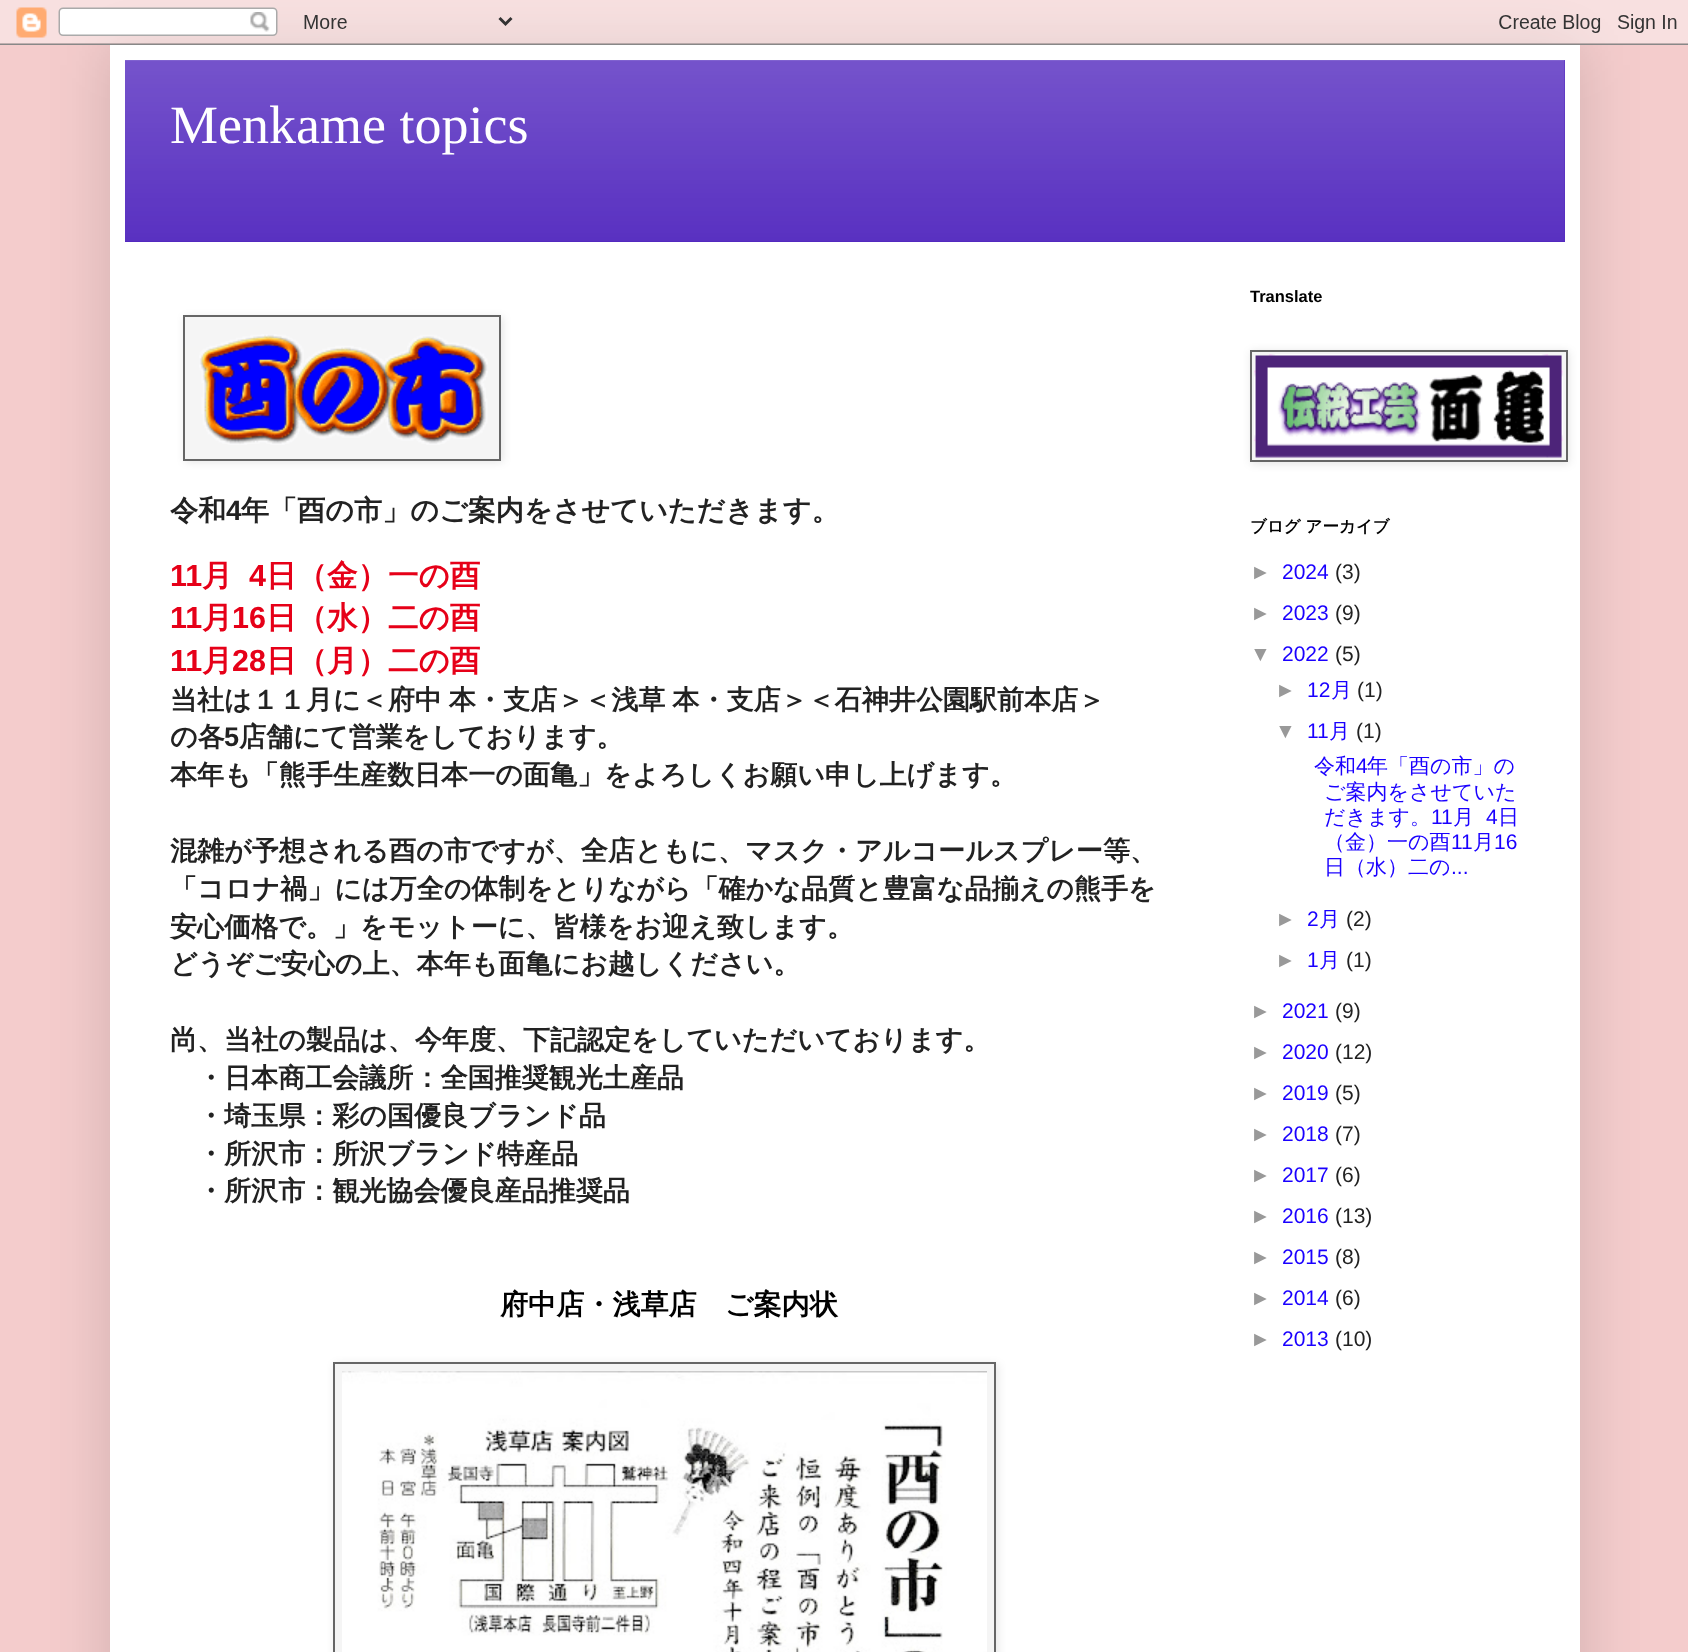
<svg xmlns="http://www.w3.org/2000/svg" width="1688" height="1652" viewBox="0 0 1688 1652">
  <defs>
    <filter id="blur1" x="-50%" y="-200%" width="200%" height="500%"><feGaussianBlur stdDeviation="30"/></filter>
    <filter id="blur2" x="-50%" y="-200%" width="200%" height="500%"><feGaussianBlur stdDeviation="4"/></filter>
  </defs>
  <rect width="100%" height="100%" fill="#f4cccc"/>
  <rect x="110" y="45" width="1470" height="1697" fill="#000000" fill-opacity="0.15" filter="url(#blur1)"/>
  <image x="0" y="0" width="1688" height="45" href="img1.png"/>
  <rect x="110" y="45" width="1470" height="1607" fill="#ffffff"/>
  <rect x="125" y="60" width="1440" height="182" fill="#5329bf"/>
  <image x="125" y="60" width="1440" height="181" href="img2.png"/>
  <text x="170" y="143" font-family="Liberation Serif" font-size="54" fill="#ffffff">Menkame topics</text>
  <rect x="185" y="317" width="318" height="145" fill="#000000" fill-opacity="0.1" filter="url(#blur2)"/>
  <rect x="184" y="316" width="316" height="144" fill="#f5f5f5" stroke="#666666" stroke-width="2"/>
  <image x="199" y="334" width="289" height="111" href="img3.png"/>
  <text x="170" y="520" font-family="WenQuanYi Zen Hei" font-size="28.1" font-weight="bold" fill="#222222">令和</text>
  <text x="226" y="520" font-family="Liberation Sans" font-size="28.1" font-weight="bold" fill="#222222">4</text>
  <text x="241" y="520" font-family="WenQuanYi Zen Hei" font-size="28.1" font-weight="bold" fill="#222222">年「酉の市」のご案内をさせていただきます。</text>
  <text x="170" y="586" font-family="Liberation Sans" font-size="30.5" font-weight="bold" fill="#e60018">11</text>
  <text x="202" y="586" font-family="WenQuanYi Zen Hei" font-size="30.5" font-weight="bold" fill="#e60018">月</text>
  <text x="249" y="586" font-family="Liberation Sans" font-size="30.5" font-weight="bold" fill="#e60018">4</text>
  <text x="266" y="586" font-family="WenQuanYi Zen Hei" font-size="30.5" font-weight="bold" fill="#e60018">日（金）一の酉</text>
  <text x="170" y="628" font-family="Liberation Sans" font-size="30.5" font-weight="bold" fill="#e60018">11</text>
  <text x="202" y="628" font-family="WenQuanYi Zen Hei" font-size="30.5" font-weight="bold" fill="#e60018">月</text>
  <text x="232" y="628" font-family="Liberation Sans" font-size="30.5" font-weight="bold" fill="#e60018">16</text>
  <text x="266" y="628" font-family="WenQuanYi Zen Hei" font-size="30.5" font-weight="bold" fill="#e60018">日（水）二の酉</text>
  <text x="170" y="671" font-family="Liberation Sans" font-size="30.5" font-weight="bold" fill="#e60018">11</text>
  <text x="202" y="671" font-family="WenQuanYi Zen Hei" font-size="30.5" font-weight="bold" fill="#e60018">月</text>
  <text x="232" y="671" font-family="Liberation Sans" font-size="30.5" font-weight="bold" fill="#e60018">28</text>
  <text x="266" y="671" font-family="WenQuanYi Zen Hei" font-size="30.5" font-weight="bold" fill="#e60018">日（月）二の酉</text>
  <text x="170" y="709" word-spacing="-1" font-family="WenQuanYi Zen Hei" font-size="27.05" font-weight="bold" fill="#222222">当社は１１月に＜府中 本・支店＞＜浅草 本・支店＞＜石神井公園駅前本店＞</text>
  <text x="170" y="746" font-family="WenQuanYi Zen Hei" font-size="27.05" font-weight="bold" fill="#222222">の各</text>
  <text x="224" y="746" font-family="Liberation Sans" font-size="27.05" font-weight="bold" fill="#222222">5</text>
  <text x="239" y="746" font-family="WenQuanYi Zen Hei" font-size="27.05" font-weight="bold" fill="#222222">店舗にて営業をしております。</text>
  <text x="170" y="784" font-family="WenQuanYi Zen Hei" font-size="27.05" font-weight="bold" fill="#222222">本年も「熊手生産数日本一の面亀」をよろしくお願い申し上げます。</text>
  <text x="170" y="860" font-family="WenQuanYi Zen Hei" font-size="27.05" font-weight="bold" fill="#222222">混雑が予想される酉の市ですが、全店ともに、マスク・アルコールスプレー等、</text>
  <text x="170" y="898" font-family="WenQuanYi Zen Hei" font-size="27.05" font-weight="bold" fill="#222222">「コロナ禍」には万全の体制をとりながら「確かな品質と豊富な品揃えの熊手を</text>
  <text x="170" y="936" font-family="WenQuanYi Zen Hei" font-size="27.05" font-weight="bold" fill="#222222">安心価格で。」をモットーに、皆様をお迎え致します。</text>
  <text x="170" y="973" font-family="WenQuanYi Zen Hei" font-size="27.05" font-weight="bold" fill="#222222">どうぞご安心の上、本年も面亀にお越しください。</text>
  <text x="170" y="1049" font-family="WenQuanYi Zen Hei" font-size="27.05" font-weight="bold" fill="#222222">尚、当社の製品は、今年度、下記認定をしていただいております。</text>
  <text x="197" y="1087" font-family="WenQuanYi Zen Hei" font-size="27.05" font-weight="bold" fill="#222222">・日本商工会議所：全国推奨観光土産品</text>
  <text x="197" y="1125" font-family="WenQuanYi Zen Hei" font-size="27.05" font-weight="bold" fill="#222222">・埼玉県：彩の国優良ブランド品</text>
  <text x="197" y="1163" font-family="WenQuanYi Zen Hei" font-size="27.05" font-weight="bold" fill="#222222">・所沢市：所沢ブランド特産品</text>
  <text x="197" y="1200" font-family="WenQuanYi Zen Hei" font-size="27.05" font-weight="bold" fill="#222222">・所沢市：観光協会優良産品推奨品</text>
  <text x="500" y="1314" font-family="WenQuanYi Zen Hei" font-size="28.1" font-weight="bold" fill="#000000">府中店・浅草店　ご案内状</text>
  <rect x="335" y="1364" width="663" height="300" fill="#000000" fill-opacity="0.1" filter="url(#blur2)"/>
  <rect x="334" y="1363" width="661" height="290" fill="#f5f5f5" stroke="#666666" stroke-width="2"/>
  <image x="342" y="1371" width="645" height="281" href="img4.png"/>
  <text x="1250" y="302" font-family="Liberation Sans" font-size="16.5" font-weight="bold" fill="#000000">Translate</text>
  <rect x="1251" y="351" width="318" height="113" fill="#000000" fill-opacity="0.1" filter="url(#blur2)"/>
  <rect x="1251" y="351" width="316" height="110" fill="#f5f5f5" stroke="#666666" stroke-width="2"/>
  <image x="1254" y="354" width="309" height="104" href="img5.png"/>
  <text x="1250" y="532" font-family="WenQuanYi Zen Hei" font-size="16.5" font-weight="bold" fill="#000000">ブログ アーカイブ</text>
  <text x="1250" y="579" font-family="Liberation Sans" font-size="21" fill="#999999">►</text>
  <text x="1282" y="579" font-family="Liberation Sans" font-size="21" fill="#1a00ff">2024</text>
  <text x="1335" y="579" font-family="Liberation Sans" font-size="21" fill="#222222">(3)</text>
  <text x="1250" y="620" font-family="Liberation Sans" font-size="21" fill="#999999">►</text>
  <text x="1282" y="620" font-family="Liberation Sans" font-size="21" fill="#1a00ff">2023</text>
  <text x="1335" y="620" font-family="Liberation Sans" font-size="21" fill="#222222">(9)</text>
  <text x="1250" y="661" font-family="Liberation Sans" font-size="21" fill="#999999">▼</text>
  <text x="1282" y="661" font-family="Liberation Sans" font-size="21" fill="#1a00ff">2022</text>
  <text x="1335" y="661" font-family="Liberation Sans" font-size="21" fill="#222222">(5)</text>
  <text x="1275" y="697" font-family="Liberation Sans" font-size="21" fill="#999999">►</text>
  <text x="1307" y="697" font-family="Liberation Sans" font-size="21" fill="#1a00ff">12</text>
  <text x="1331" y="697" font-family="WenQuanYi Zen Hei" font-size="21" font-weight="500" fill="#1a00ff">月</text>
  <text x="1357" y="697" font-family="Liberation Sans" font-size="21" fill="#222222">(1)</text>
  <text x="1275" y="738" font-family="Liberation Sans" font-size="21" fill="#999999">▼</text>
  <text x="1307" y="738" font-family="Liberation Sans" font-size="21" fill="#1a00ff">11</text>
  <text x="1329" y="738" font-family="WenQuanYi Zen Hei" font-size="21" font-weight="500" fill="#1a00ff">月</text>
  <text x="1356" y="738" font-family="Liberation Sans" font-size="21" fill="#222222">(1)</text>
  <text x="1314" y="773" font-family="WenQuanYi Zen Hei" font-size="21" font-weight="500" fill="#1a00ff">令和</text>
  <text x="1356" y="773" font-family="Liberation Sans" font-size="21" fill="#1a00ff">4</text>
  <text x="1367" y="773" font-family="WenQuanYi Zen Hei" font-size="21" font-weight="500" fill="#1a00ff">年「酉の市」の</text>
  <text x="1324" y="799" font-family="WenQuanYi Zen Hei" font-size="21" font-weight="500" fill="#1a00ff">ご案内をさせていた</text>
  <text x="1324" y="824" font-family="WenQuanYi Zen Hei" font-size="21" font-weight="500" fill="#1a00ff">だきます。</text>
  <text x="1431" y="824" font-family="Liberation Sans" font-size="21" fill="#1a00ff">11</text>
  <text x="1453" y="824" font-family="WenQuanYi Zen Hei" font-size="21" font-weight="500" fill="#1a00ff">月</text>
  <text x="1486" y="824" font-family="Liberation Sans" font-size="21" fill="#1a00ff">4</text>
  <text x="1498" y="824" font-family="WenQuanYi Zen Hei" font-size="21" font-weight="500" fill="#1a00ff">日</text>
  <text x="1324" y="849" font-family="WenQuanYi Zen Hei" font-size="21" font-weight="500" fill="#1a00ff">（金）一の酉</text>
  <text x="1451" y="849" font-family="Liberation Sans" font-size="21" fill="#1a00ff">11</text>
  <text x="1473" y="849" font-family="WenQuanYi Zen Hei" font-size="21" font-weight="500" fill="#1a00ff">月</text>
  <text x="1494" y="849" font-family="Liberation Sans" font-size="21" fill="#1a00ff">16</text>
  <text x="1324" y="874" font-family="WenQuanYi Zen Hei" font-size="21" font-weight="500" fill="#1a00ff">日（水）二の</text>
  <text x="1451" y="874" font-family="Liberation Sans" font-size="21" fill="#1a00ff">...</text>
  <text x="1275" y="926" font-family="Liberation Sans" font-size="21" fill="#999999">►</text>
  <text x="1307" y="926" font-family="Liberation Sans" font-size="21" fill="#1a00ff">2</text>
  <text x="1319" y="926" font-family="WenQuanYi Zen Hei" font-size="21" font-weight="500" fill="#1a00ff">月</text>
  <text x="1346" y="926" font-family="Liberation Sans" font-size="21" fill="#222222">(2)</text>
  <text x="1275" y="967" font-family="Liberation Sans" font-size="21" fill="#999999">►</text>
  <text x="1307" y="967" font-family="Liberation Sans" font-size="21" fill="#1a00ff">1</text>
  <text x="1319" y="967" font-family="WenQuanYi Zen Hei" font-size="21" font-weight="500" fill="#1a00ff">月</text>
  <text x="1346" y="967" font-family="Liberation Sans" font-size="21" fill="#222222">(1)</text>
  <text x="1250" y="1018" font-family="Liberation Sans" font-size="21" fill="#999999">►</text>
  <text x="1282" y="1018" font-family="Liberation Sans" font-size="21" fill="#1a00ff">2021</text>
  <text x="1335" y="1018" font-family="Liberation Sans" font-size="21" fill="#222222">(9)</text>
  <text x="1250" y="1059" font-family="Liberation Sans" font-size="21" fill="#999999">►</text>
  <text x="1282" y="1059" font-family="Liberation Sans" font-size="21" fill="#1a00ff">2020</text>
  <text x="1335" y="1059" font-family="Liberation Sans" font-size="21" fill="#222222">(12)</text>
  <text x="1250" y="1100" font-family="Liberation Sans" font-size="21" fill="#999999">►</text>
  <text x="1282" y="1100" font-family="Liberation Sans" font-size="21" fill="#1a00ff">2019</text>
  <text x="1335" y="1100" font-family="Liberation Sans" font-size="21" fill="#222222">(5)</text>
  <text x="1250" y="1141" font-family="Liberation Sans" font-size="21" fill="#999999">►</text>
  <text x="1282" y="1141" font-family="Liberation Sans" font-size="21" fill="#1a00ff">2018</text>
  <text x="1335" y="1141" font-family="Liberation Sans" font-size="21" fill="#222222">(7)</text>
  <text x="1250" y="1182" font-family="Liberation Sans" font-size="21" fill="#999999">►</text>
  <text x="1282" y="1182" font-family="Liberation Sans" font-size="21" fill="#1a00ff">2017</text>
  <text x="1335" y="1182" font-family="Liberation Sans" font-size="21" fill="#222222">(6)</text>
  <text x="1250" y="1223" font-family="Liberation Sans" font-size="21" fill="#999999">►</text>
  <text x="1282" y="1223" font-family="Liberation Sans" font-size="21" fill="#1a00ff">2016</text>
  <text x="1335" y="1223" font-family="Liberation Sans" font-size="21" fill="#222222">(13)</text>
  <text x="1250" y="1264" font-family="Liberation Sans" font-size="21" fill="#999999">►</text>
  <text x="1282" y="1264" font-family="Liberation Sans" font-size="21" fill="#1a00ff">2015</text>
  <text x="1335" y="1264" font-family="Liberation Sans" font-size="21" fill="#222222">(8)</text>
  <text x="1250" y="1305" font-family="Liberation Sans" font-size="21" fill="#999999">►</text>
  <text x="1282" y="1305" font-family="Liberation Sans" font-size="21" fill="#1a00ff">2014</text>
  <text x="1335" y="1305" font-family="Liberation Sans" font-size="21" fill="#222222">(6)</text>
  <text x="1250" y="1346" font-family="Liberation Sans" font-size="21" fill="#999999">►</text>
  <text x="1282" y="1346" font-family="Liberation Sans" font-size="21" fill="#1a00ff">2013</text>
  <text x="1335" y="1346" font-family="Liberation Sans" font-size="21" fill="#222222">(10)</text>
</svg>
